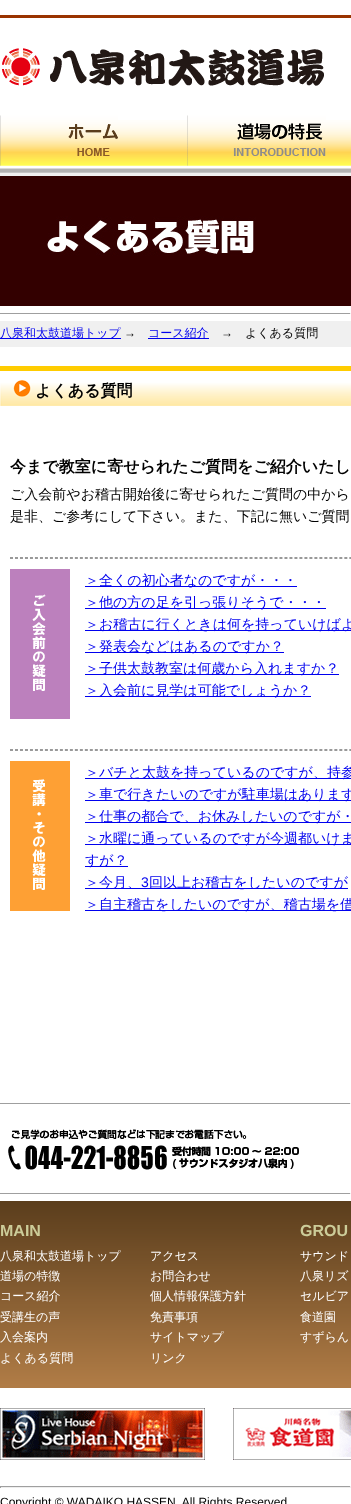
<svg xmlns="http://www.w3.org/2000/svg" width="351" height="1504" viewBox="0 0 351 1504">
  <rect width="100%" height="100%" fill="#ffffff"/>
  <rect x="0" y="15" width="351" height="3" fill="#993300"/>
  <image x="2" y="48" width="322" height="38" href="img1.png"/>
  <image x="0" y="120" width="351" height="53" href="img2.png"/>
  <image x="0" y="115" width="118" height="51" href="img3.png"/>
  <image x="187" y="115" width="139" height="51" href="img4.png"/>
  <image x="0" y="173" width="351" height="3" href="img5.png"/>
  <image x="0" y="176" width="351" height="130" href="img6.png"/>
  <rect x="0" y="313" width="351" height="1" fill="#9f9f9f"/>
  <rect x="350" y="313" width="1" height="1" fill="#eeeeee"/>
  <rect x="0" y="321" width="351" height="26" fill="#f0f0f0"/>
  <rect x="0" y="338" width="121" height="1" fill="#0000ee"/>
  <text x="0" y="337" font-family="WenQuanYi Zen Hei" font-size="12" font-weight="500" fill="#0000ee">八泉和太鼓道場トップ</text>
  <text x="124" y="337" font-family="Liberation Sans" font-size="12" fill="#000000">→</text>
  <rect x="148" y="338" width="61" height="1" fill="#0000ee"/>
  <text x="148" y="337" font-family="WenQuanYi Zen Hei" font-size="12" font-weight="500" fill="#0000ee">コース紹介</text>
  <text x="221" y="337" font-family="Liberation Sans" font-size="12" fill="#000000">→</text>
  <text x="245" y="337" font-family="WenQuanYi Zen Hei" font-size="12" font-weight="500" fill="#000000">よくある質問</text>
  <image x="0" y="366" width="351" height="40" href="img7.png"/>
  <text x="35" y="396" font-family="WenQuanYi Zen Hei" font-size="16" font-weight="bold" fill="#000000">よくある質問</text>
  <text x="10" y="472" font-family="WenQuanYi Zen Hei" font-size="16" font-weight="bold" fill="#000000">今まで教室に寄せられたご質問をご紹介いたし</text>
  <text x="10" y="499" font-family="WenQuanYi Zen Hei" font-size="14" font-weight="500" fill="#000000">ご入会前やお稽古開始後に寄せられたご質問の中から</text>
  <text x="10" y="521" font-family="WenQuanYi Zen Hei" font-size="14" font-weight="500" fill="#000000">是非、ご参考にして下さい。また、下記に無いご質問</text>
  <path d="M10 557.5H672" fill="none" stroke="#999999" stroke-dasharray="3 1.99"/>
  <path d="M10 558.5H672" fill="none" stroke="#999999" stroke-dasharray="3 1.99"/>
  <image x="10" y="569" width="60" height="150" href="img8.png"/>
  <rect x="85" y="586" width="212" height="1" fill="#0000ee"/>
  <text x="85" y="585" font-family="WenQuanYi Zen Hei" font-size="14" font-weight="500" fill="#0000ee">＞全くの初心者なのですが・・・</text>
  <rect x="85" y="608" width="241" height="1" fill="#0000ee"/>
  <text x="85" y="607" font-family="WenQuanYi Zen Hei" font-size="14" font-weight="500" fill="#0000ee">＞他の方の足を引っ張りそうで・・・</text>
  <rect x="85" y="630" width="266" height="1" fill="#0000ee"/>
  <text x="85" y="629" font-family="WenQuanYi Zen Hei" font-size="14" font-weight="500" fill="#0000ee">＞お稽古に行くときは何を持っていけばよ</text>
  <rect x="85" y="652" width="199" height="1" fill="#0000ee"/>
  <text x="85" y="651" font-family="WenQuanYi Zen Hei" font-size="14" font-weight="500" fill="#0000ee">＞発表会などはあるのですか？</text>
  <rect x="85" y="674" width="254" height="1" fill="#0000ee"/>
  <text x="85" y="673" font-family="WenQuanYi Zen Hei" font-size="14" font-weight="500" fill="#0000ee">＞子供太鼓教室は何歳から入れますか？</text>
  <rect x="85" y="696" width="226" height="1" fill="#0000ee"/>
  <text x="85" y="695" font-family="WenQuanYi Zen Hei" font-size="14" font-weight="500" fill="#0000ee">＞入会前に見学は可能でしょうか？</text>
  <path d="M10 749.5H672" fill="none" stroke="#999999" stroke-dasharray="3 1.99"/>
  <path d="M10 750.5H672" fill="none" stroke="#999999" stroke-dasharray="3 1.99"/>
  <image x="10" y="761" width="60" height="150" href="img9.png"/>
  <rect x="85" y="778" width="266" height="1" fill="#0000ee"/>
  <text x="85" y="777" font-family="WenQuanYi Zen Hei" font-size="14" font-weight="500" fill="#0000ee">＞バチと太鼓を持っているのですが、持参</text>
  <rect x="85" y="800" width="266" height="1" fill="#0000ee"/>
  <text x="85" y="799" font-family="WenQuanYi Zen Hei" font-size="14" font-weight="500" fill="#0000ee">＞車で行きたいのですが駐車場はあります</text>
  <rect x="85" y="822" width="266" height="1" fill="#0000ee"/>
  <text x="85" y="821" font-family="WenQuanYi Zen Hei" font-size="14" font-weight="500" fill="#0000ee">＞仕事の都合で、お休みしたいのですが・</text>
  <rect x="85" y="844" width="266" height="1" fill="#0000ee"/>
  <text x="85" y="843" font-family="WenQuanYi Zen Hei" font-size="14" font-weight="500" fill="#0000ee">＞水曜に通っているのですが今週都いけま</text>
  <rect x="85" y="866" width="43" height="1" fill="#0000ee"/>
  <text x="85" y="865" font-family="WenQuanYi Zen Hei" font-size="14" font-weight="500" fill="#0000ee">すが？</text>
  <rect x="85" y="888" width="263" height="1" fill="#0000ee"/>
  <text x="85" y="887" font-family="WenQuanYi Zen Hei" font-size="14" font-weight="500" fill="#0000ee">＞今月、</text>
  <text x="141" y="887" font-family="Liberation Sans" font-size="14" fill="#0000ee">3</text>
  <text x="149" y="887" font-family="WenQuanYi Zen Hei" font-size="14" font-weight="500" fill="#0000ee">回以上お稽古をしたいのですが</text>
  <rect x="85" y="910" width="266" height="1" fill="#0000ee"/>
  <text x="85" y="909" font-family="WenQuanYi Zen Hei" font-size="14" font-weight="500" fill="#0000ee">＞自主稽古をしたいのですが、稽古場を借</text>
  <rect x="0" y="1103" width="351" height="1" fill="#9f9f9f"/>
  <rect x="350" y="1103" width="1" height="1" fill="#eeeeee"/>
  <image x="8" y="1129" width="291" height="41" href="img10.png"/>
  <rect x="0" y="1193" width="351" height="1" fill="#9f9f9f"/>
  <rect x="350" y="1193" width="1" height="1" fill="#eeeeee"/>
  <image x="0" y="1201" width="351" height="187" href="img11.png"/>
  <text x="0" y="1236" font-family="Liberation Sans" font-size="16" font-weight="bold" fill="#cccc99">MAIN</text>
  <text x="300" y="1236" font-family="Liberation Sans" font-size="16" font-weight="bold" fill="#cccc99">GROU</text>
  <text x="0" y="1260" font-family="WenQuanYi Zen Hei" font-size="12" font-weight="500" fill="#ffffff">八泉和太鼓道場トップ</text>
  <text x="150" y="1260" font-family="WenQuanYi Zen Hei" font-size="12" font-weight="500" fill="#ffffff">アクセス</text>
  <text x="300" y="1260" font-family="WenQuanYi Zen Hei" font-size="12" font-weight="500" fill="#ffffff">サウンド</text>
  <text x="0" y="1280" font-family="WenQuanYi Zen Hei" font-size="12" font-weight="500" fill="#ffffff">道場の特徴</text>
  <text x="150" y="1280" font-family="WenQuanYi Zen Hei" font-size="12" font-weight="500" fill="#ffffff">お問合わせ</text>
  <text x="300" y="1280" font-family="WenQuanYi Zen Hei" font-size="12" font-weight="500" fill="#ffffff">八泉リズ</text>
  <text x="0" y="1300" font-family="WenQuanYi Zen Hei" font-size="12" font-weight="500" fill="#ffffff">コース紹介</text>
  <text x="150" y="1300" font-family="WenQuanYi Zen Hei" font-size="12" font-weight="500" fill="#ffffff">個人情報保護方針</text>
  <text x="300" y="1300" font-family="WenQuanYi Zen Hei" font-size="12" font-weight="500" fill="#ffffff">セルビア</text>
  <text x="0" y="1321" font-family="WenQuanYi Zen Hei" font-size="12" font-weight="500" fill="#ffffff">受講生の声</text>
  <text x="150" y="1321" font-family="WenQuanYi Zen Hei" font-size="12" font-weight="500" fill="#ffffff">免責事項</text>
  <text x="300" y="1321" font-family="WenQuanYi Zen Hei" font-size="12" font-weight="500" fill="#ffffff">食道園</text>
  <text x="0" y="1341" font-family="WenQuanYi Zen Hei" font-size="12" font-weight="500" fill="#ffffff">入会案内</text>
  <text x="150" y="1341" font-family="WenQuanYi Zen Hei" font-size="12" font-weight="500" fill="#ffffff">サイトマップ</text>
  <text x="300" y="1341" font-family="WenQuanYi Zen Hei" font-size="12" font-weight="500" fill="#ffffff">すずらん</text>
  <text x="0" y="1362" font-family="WenQuanYi Zen Hei" font-size="12" font-weight="500" fill="#ffffff">よくある質問</text>
  <text x="150" y="1362" font-family="WenQuanYi Zen Hei" font-size="12" font-weight="500" fill="#ffffff">リンク</text>
  <image x="0" y="1408" width="205" height="52" href="img12.png"/>
  <image x="233" y="1408" width="118" height="52" href="img13.png"/>
  <rect x="0" y="1486" width="351" height="1" fill="#9f9f9f"/>
  <rect x="350" y="1486" width="1" height="2" fill="#eeeeee"/>
  <rect x="0" y="1487" width="351" height="1" fill="#eeeeee"/>
  <rect x="0" y="1486" width="1" height="2" fill="#9f9f9f"/>
  <text x="0" y="1506" font-family="Liberation Sans" font-size="12" fill="#000000">Copyright © WADAIKO HASSEN. All Rights Reserved</text>
</svg>
